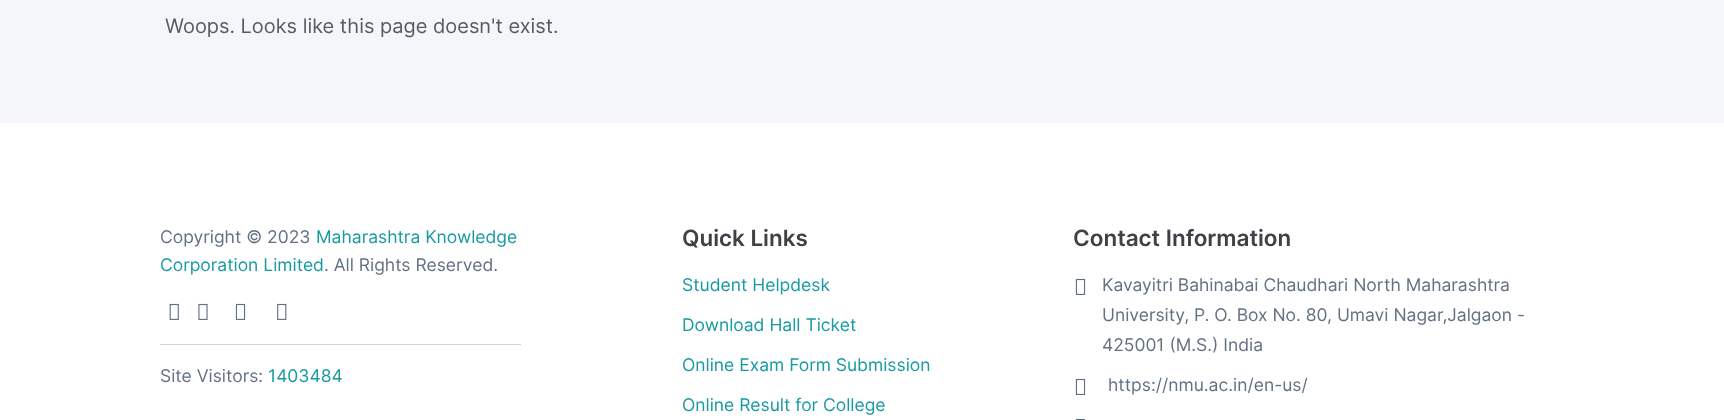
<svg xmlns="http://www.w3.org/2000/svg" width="1724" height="420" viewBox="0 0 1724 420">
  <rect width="100%" height="100%" fill="#f4f6f9"/>
  <text x="165" y="33" font-family="Inter" font-size="20" fill="#555c66">Woops. Looks like this page doesn't exist.</text>
  <rect x="0" y="123" width="1724" height="297" fill="#ffffff"/>
  <text x="160" y="243" font-family="Inter" font-size="17.5" fill="#637184">Copyright © 2023</text>
  <text x="316" y="243" font-family="Inter" font-size="17.5" fill="#189aa3">Maharashtra Knowledge</text>
  <text x="160" y="271" font-family="Inter" font-size="17.5" fill="#189aa3">Corporation Limited</text>
  <text x="324" y="271" font-family="Inter" font-size="17.5" fill="#637184">. All Rights Reserved.</text>
  <rect x="160" y="344" width="361" height="1" fill="#d2d2d2"/>
  <image x="169" y="303" width="10" height="17" href="img1.png"/>
  <image x="198" y="303" width="10" height="17" href="img2.png"/>
  <image x="235" y="303" width="11" height="17" href="img3.png"/>
  <image x="277" y="303" width="10" height="17" href="img4.png"/>
  <text x="160" y="382" font-family="Inter" font-size="17.5" fill="#637184">Site Visitors:</text>
  <text x="268" y="382" font-family="Inter" font-size="17.5" fill="#189aa3">1403484</text>
  <text x="682" y="246" font-family="Inter" font-size="22.5" font-weight="600" fill="#3e4246">Quick Links</text>
  <text x="682" y="291" font-family="Inter" font-size="17.5" fill="#189aa3">Student Helpdesk</text>
  <text x="682" y="331" font-family="Inter" font-size="17.5" fill="#189aa3">Download Hall Ticket</text>
  <text x="682" y="371" font-family="Inter" font-size="17.5" fill="#189aa3">Online Exam Form Submission</text>
  <text x="682" y="411" font-family="Inter" font-size="17.5" fill="#189aa3">Online Result for College</text>
  <text x="1073" y="246" font-family="Inter" font-size="22.5" font-weight="600" fill="#3e4246">Contact Information</text>
  <image x="1075" y="278" width="11" height="17" href="img3.png"/>
  <text x="1102" y="291" font-family="Inter" font-size="17.5" fill="#637184">Kavayitri Bahinabai Chaudhari North Maharashtra</text>
  <text x="1102" y="321" font-family="Inter" font-size="17.5" fill="#637184">University, P. O. Box No. 80, Umavi Nagar,Jalgaon -</text>
  <text x="1102" y="351" font-family="Inter" font-size="17.5" fill="#637184">425001 (M.S.) India</text>
  <image x="1075" y="378" width="11" height="17" href="img3.png"/>
  <text x="1108" y="391" font-family="Inter" font-size="17.5" fill="#637184">https://nmu.ac.in/en-us/</text>
  <image x="1075" y="418" width="11" height="2" href="img5.png"/>
</svg>
